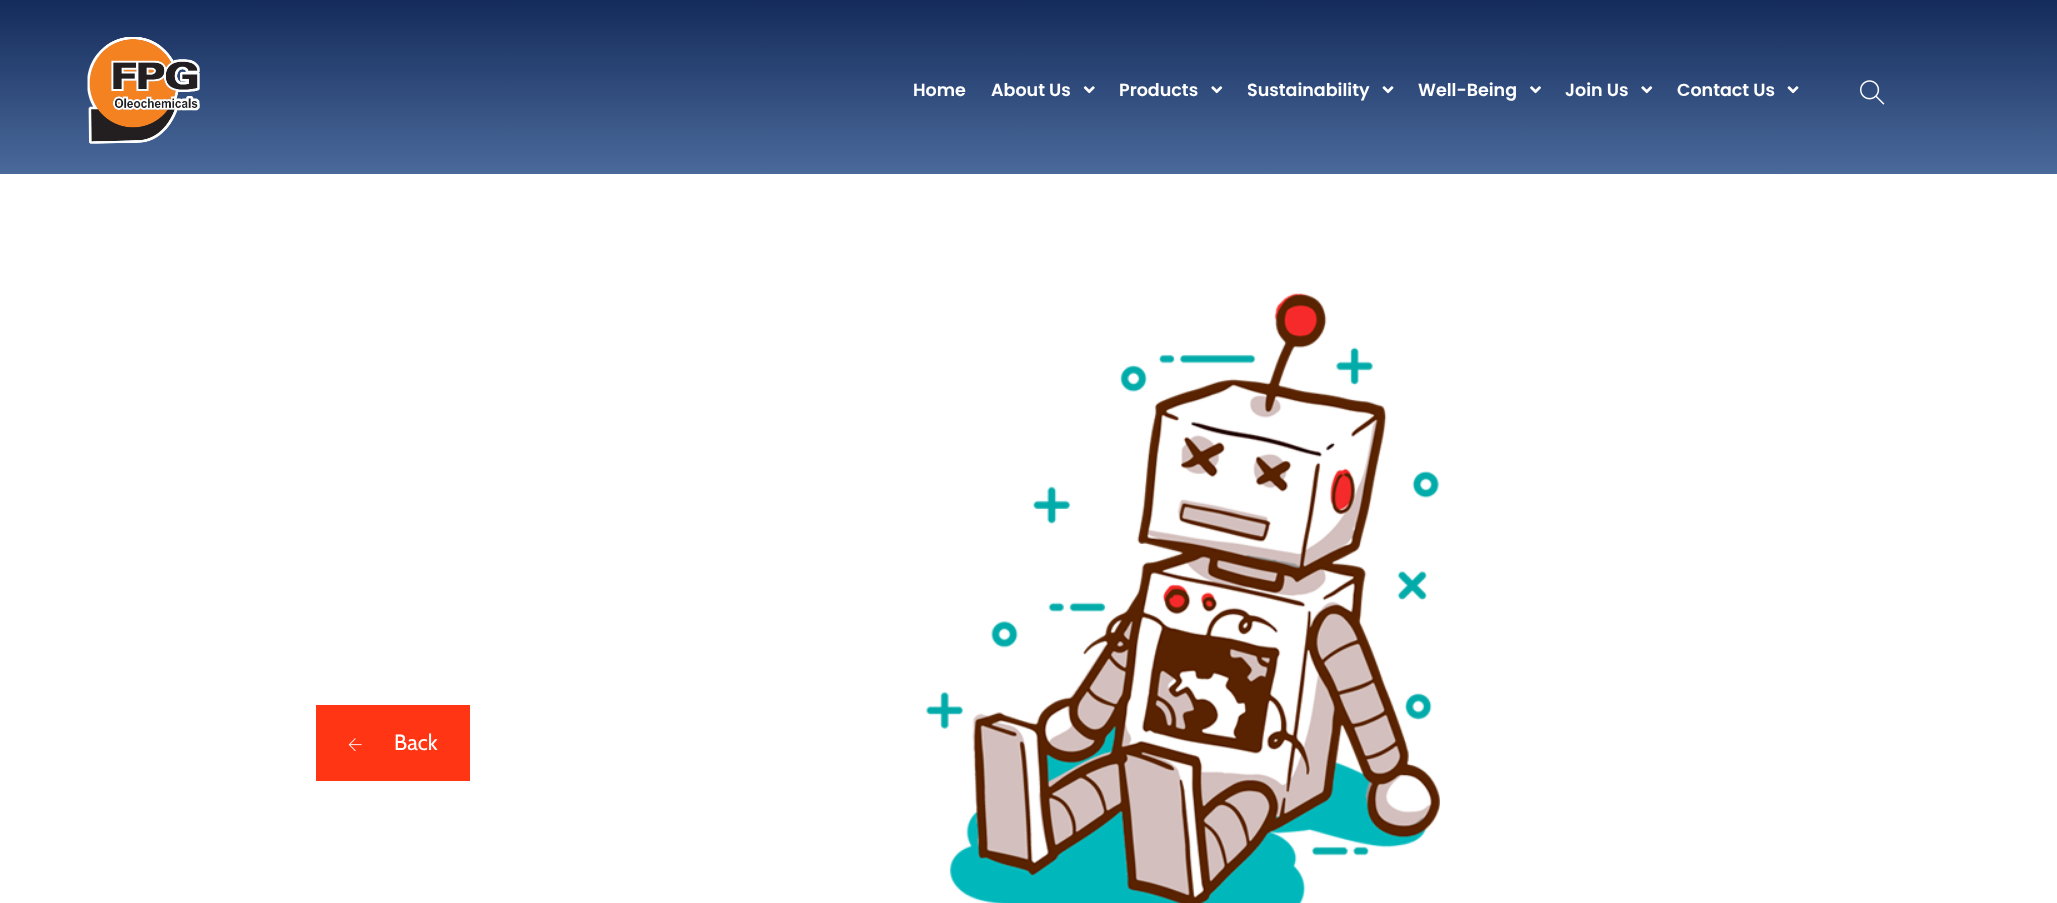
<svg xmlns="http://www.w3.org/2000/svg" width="2057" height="903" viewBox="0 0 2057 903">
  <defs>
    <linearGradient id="g1" gradientUnits="userSpaceOnUse" x1="1029" y1="0" x2="1029" y2="174"><stop offset="0" stop-color="#142b5b"/><stop offset="1" stop-color="#4a6a9b"/></linearGradient>
  </defs>
  <rect width="100%" height="100%" fill="#ffffff"/>
  <rect x="0" y="0" width="2057" height="174" fill="url(#g1)"/>
  <image x="87" y="37" width="113" height="107" href="img1.png"/>
  <text x="913" y="96" font-family="Poppins" font-size="17.5" font-weight="600" fill="#ffffff">Home</text>
  <text x="991" y="96" font-family="Poppins" font-size="17.5" font-weight="600" fill="#ffffff">About Us</text>
  <image x="1083" y="86" width="12" height="8" href="img2.png"/>
  <text x="1119" y="96" font-family="Poppins" font-size="17.5" font-weight="600" fill="#ffffff">Products</text>
  <image x="1211" y="86" width="12" height="8" href="img3.png"/>
  <text x="1247" y="96" font-family="Poppins" font-size="17.5" font-weight="600" fill="#ffffff">Sustainability</text>
  <image x="1382" y="86" width="12" height="8" href="img4.png"/>
  <text x="1418" y="96" font-family="Poppins" font-size="17.5" font-weight="600" fill="#ffffff">Well-Being</text>
  <image x="1530" y="86" width="11" height="8" href="img5.png"/>
  <text x="1565" y="96" font-family="Poppins" font-size="17.5" font-weight="600" fill="#ffffff">Join Us</text>
  <image x="1641" y="86" width="12" height="8" href="img3.png"/>
  <text x="1677" y="96" font-family="Poppins" font-size="17.5" font-weight="600" fill="#ffffff">Contact Us</text>
  <image x="1787" y="86" width="12" height="8" href="img4.png"/>
  <image x="1860" y="80" width="25" height="25" href="img6.png"/>
  <rect x="316" y="705" width="154" height="76" fill="#ff3514"/>
  <image x="348" y="738" width="14" height="14" href="img7.png"/>
  <text x="394" y="750" font-family="Cabin" font-size="22" fill="#ffffff">Back</text>
  <image x="926" y="293" width="514" height="610" href="img8.png"/>
</svg>
